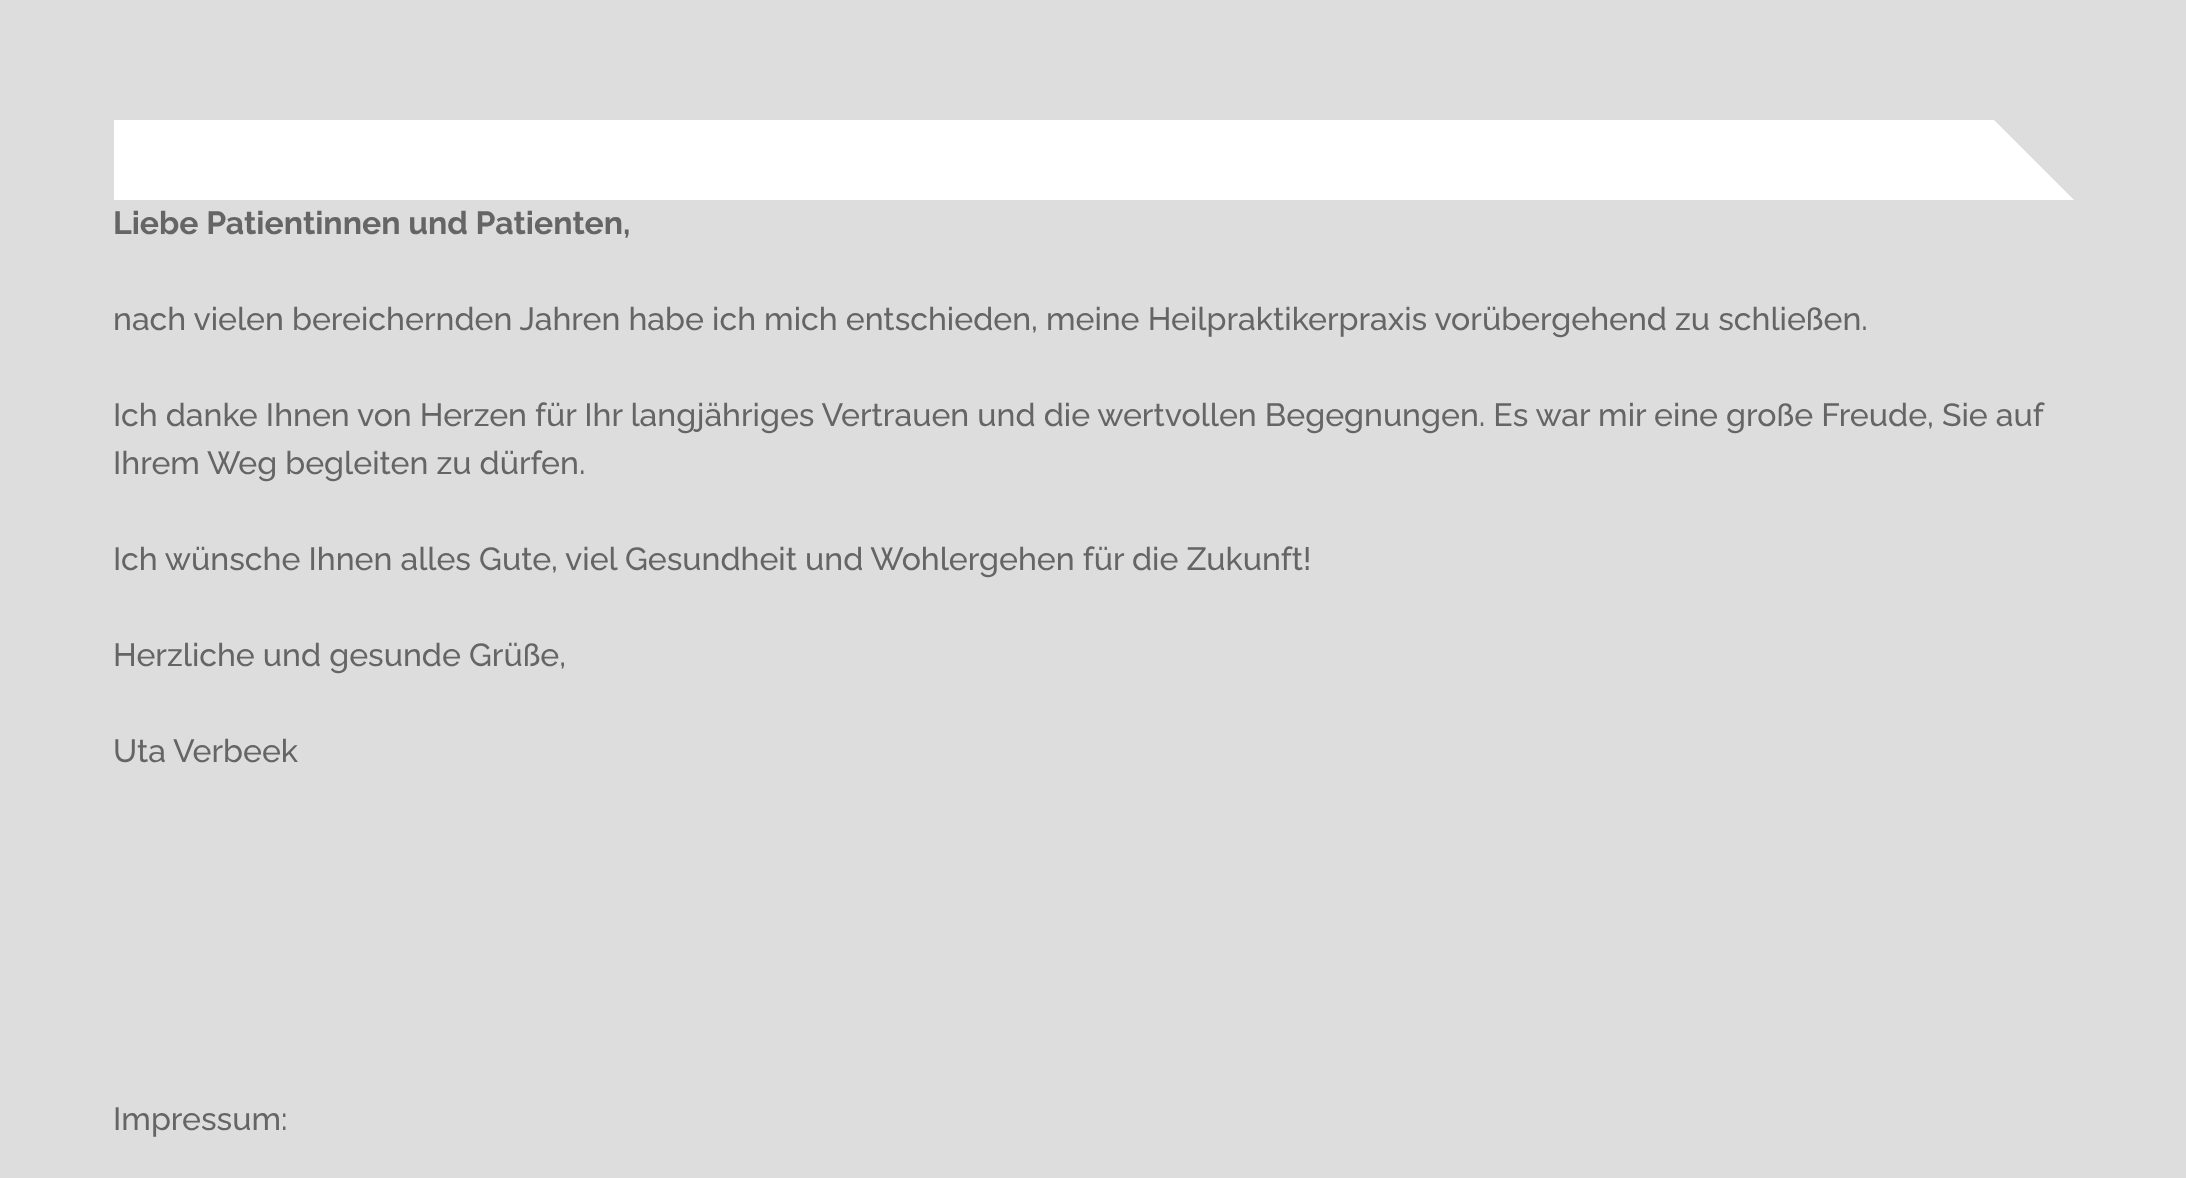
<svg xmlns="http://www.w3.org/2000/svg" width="2186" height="1178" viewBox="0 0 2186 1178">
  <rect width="100%" height="100%" fill="#dddddd"/>
  <path d="M2074 200H114V120H1994Z" fill="#ffffff"/>
  <text x="113" y="234" font-family="Raleway" font-size="32" font-weight="bold" fill="#656565">Liebe Patientinnen und Patienten,</text>
  <text x="113" y="330" font-family="Raleway" font-size="32" font-weight="500" fill="#656565">nach vielen bereichernden Jahren habe ich mich entschieden, meine Heilpraktikerpraxis vorübergehend zu schließen.</text>
  <text x="113" y="426" font-family="Raleway" font-size="32" font-weight="500" fill="#656565">Ich danke Ihnen von Herzen für Ihr langjähriges Vertrauen und die wertvollen Begegnungen. Es war mir eine große Freude, Sie auf</text>
  <text x="113" y="474" font-family="Raleway" font-size="32" font-weight="500" fill="#656565">Ihrem Weg begleiten zu dürfen.</text>
  <text x="113" y="570" font-family="Raleway" font-size="32" font-weight="500" fill="#656565">Ich wünsche Ihnen alles Gute, viel Gesundheit und Wohlergehen für die Zukunft!</text>
  <text x="113" y="666" font-family="Raleway" font-size="32" font-weight="500" fill="#656565">Herzliche und gesunde Grüße,</text>
  <text x="113" y="762" font-family="Raleway" font-size="32" font-weight="500" fill="#656565">Uta Verbeek</text>
  <text x="113" y="1130" font-family="Raleway" font-size="32" font-weight="500" fill="#656565">Impressum:</text>
</svg>
